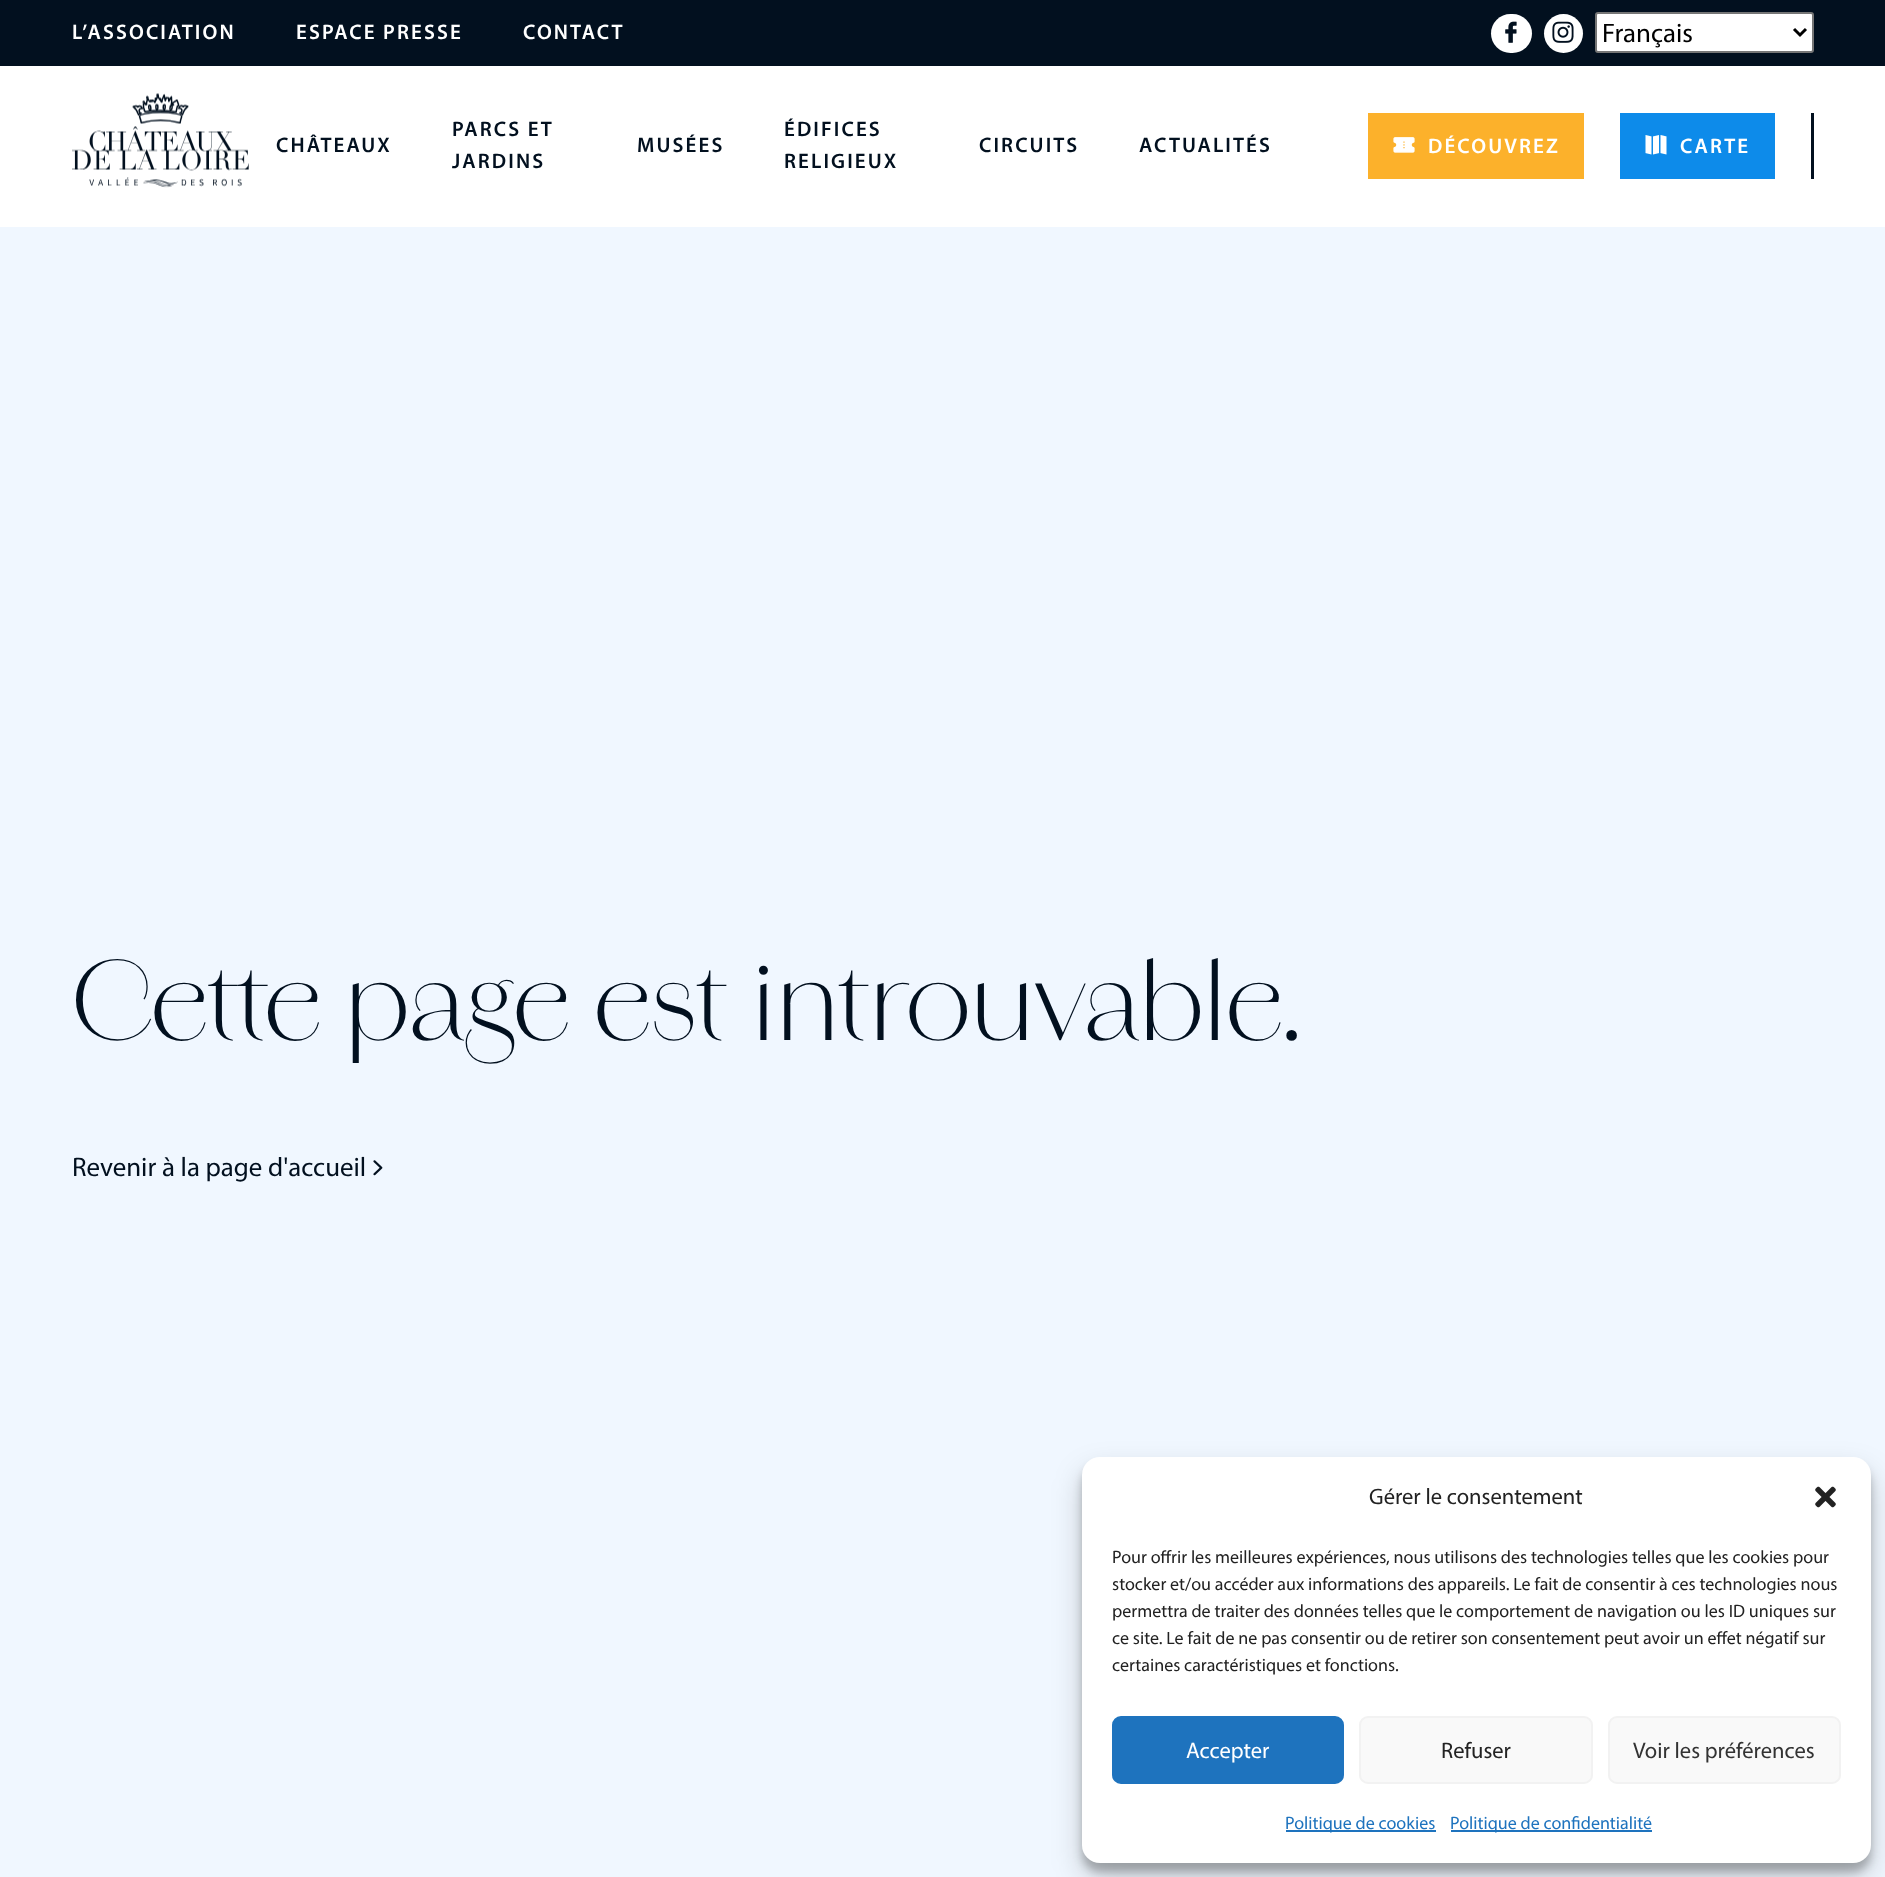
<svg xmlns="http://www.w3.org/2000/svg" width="1885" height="1877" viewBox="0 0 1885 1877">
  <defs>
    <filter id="blur1" x="-50%" y="-200%" width="200%" height="500%"><feGaussianBlur stdDeviation="4.5"/></filter>
    <filter id="blur2" x="-50%" y="-200%" width="200%" height="500%"><feGaussianBlur stdDeviation="15"/></filter>
  </defs>
  <rect width="100%" height="100%" fill="#ffffff"/>
  <rect x="0" y="0" width="1885" height="66" fill="#02101f"/>
  <text x="72" y="39" font-family="Myriad" font-size="21" font-weight="600" letter-spacing="2.1" fill="#ffffff">L’ASSOCIATION</text>
  <text x="296" y="39" font-family="Myriad" font-size="21" font-weight="600" letter-spacing="2.1" fill="#ffffff">ESPACE PRESSE</text>
  <text x="523" y="39" font-family="Myriad" font-size="21" font-weight="600" letter-spacing="2.1" fill="#ffffff">CONTACT</text>
  <rect x="1491" y="14" width="41" height="39" rx="19.5" fill="#ffffff"/>
  <image x="1505" y="21" width="12" height="22" href="img1.png"/>
  <circle cx="1563.5" cy="33.5" r="19.5" fill="#ffffff"/>
  <image x="1552" y="21" width="22" height="22" href="img2.png"/>
  <rect x="1596" y="13" width="217" height="39" rx="2" fill="#ffffff" stroke="#767676" stroke-width="2"/>
  <path d="M1794 29L1800 35L1806 29" fill="none" stroke="#000000" stroke-width="3"/>
  <text x="1602" y="42" font-family="Myriad" font-size="26.9" fill="#000000">Français</text>
  <image x="72" y="93" width="177" height="95" href="img3.png"/>
  <text x="276" y="152" font-family="Myriad" font-size="21" font-weight="600" letter-spacing="2.1" fill="#02101f">CHÂTEAUX</text>
  <text x="452" y="136" font-family="Myriad" font-size="21" font-weight="600" letter-spacing="2.1" fill="#02101f">PARCS ET</text>
  <text x="452" y="168" font-family="Myriad" font-size="21" font-weight="600" letter-spacing="2.1" fill="#02101f">JARDINS</text>
  <text x="637" y="152" font-family="Myriad" font-size="21" font-weight="600" letter-spacing="2.1" fill="#02101f">MUSÉES</text>
  <text x="784" y="136" font-family="Myriad" font-size="21" font-weight="600" letter-spacing="2.1" fill="#02101f">ÉDIFICES</text>
  <text x="784" y="168" font-family="Myriad" font-size="21" font-weight="600" letter-spacing="2.1" fill="#02101f">RELIGIEUX</text>
  <text x="979" y="152" font-family="Myriad" font-size="21" font-weight="600" letter-spacing="2.1" fill="#02101f">CIRCUITS</text>
  <text x="1139" y="152" font-family="Myriad" font-size="21" font-weight="600" letter-spacing="2.1" fill="#02101f">ACTUALITÉS</text>
  <rect x="1369" y="114" width="214" height="64" fill="#fcb12b" stroke="#fcb12b" stroke-width="2"/>
  <image x="1393" y="137" width="22" height="16" href="img4.png"/>
  <text x="1428" y="153" font-family="Myriad" font-size="21" font-weight="600" letter-spacing="2.1" fill="#ffffff">DÉCOUVREZ</text>
  <rect x="1621" y="114" width="153" height="64" fill="#0d8bea" stroke="#0d8bea" stroke-width="2"/>
  <image x="1645" y="135" width="22" height="20" href="img5.png"/>
  <text x="1680" y="153" font-family="Myriad" font-size="21" font-weight="600" letter-spacing="2.1" fill="#ffffff">CARTE</text>
  <rect x="1811" y="113" width="3" height="66" fill="#02101f"/>
  <rect x="0" y="227" width="1885" height="1650" fill="#f0f7ff"/>
  <text x="72" y="1040" font-family="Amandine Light" font-size="105" font-weight="300" fill="#02101f">Cette page est introuvable.</text>
  <text x="72" y="1176" font-family="Myriad" font-size="26.9" fill="#02101f">Revenir à la page d'accueil</text>
  <image x="373" y="1160" width="10" height="16" href="img6.png"/>
  <rect x="1082" y="1466" width="789" height="406" rx="18" fill="#000000" fill-opacity="0.23" filter="url(#blur1)"/>
  <rect x="1082" y="1472" width="789" height="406" rx="18" fill="#000000" fill-opacity="0.19" filter="url(#blur2)"/>
  <rect x="1082" y="1457" width="789" height="406" rx="18" fill="#ffffff"/>
  <text x="1369" y="1504" font-family="Myriad" font-size="22.5" fill="#222222">Gérer le consentement</text>
  <image x="1815" y="1486" width="21" height="22" href="img7.png"/>
  <text x="1112" y="1563" font-family="Myriad" font-size="18" fill="#222222">Pour offrir les meilleures expériences, nous utilisons des technologies telles que les cookies pour</text>
  <text x="1112" y="1590" font-family="Myriad" font-size="18" fill="#222222">stocker et/ou accéder aux informations des appareils. Le fait de consentir à ces technologies nous</text>
  <text x="1112" y="1617" font-family="Myriad" font-size="18" fill="#222222">permettra de traiter des données telles que le comportement de navigation ou les ID uniques sur</text>
  <text x="1112" y="1644" font-family="Myriad" font-size="18" fill="#222222">ce site. Le fait de ne pas consentir ou de retirer son consentement peut avoir un effet négatif sur</text>
  <text x="1112" y="1671" font-family="Myriad" font-size="18" fill="#222222">certaines caractéristiques et fonctions.</text>
  <rect x="1113" y="1717" width="230" height="66" rx="8" fill="#1e73be" stroke="#1e73be" stroke-width="2"/>
  <text x="1186" y="1758" font-family="Myriad" font-size="22.5" fill="#ffffff">Accepter</text>
  <rect x="1360" y="1717" width="232" height="66" rx="8" fill="#f9f9f9" stroke="#f2f2f2" stroke-width="2"/>
  <text x="1441" y="1758" font-family="Myriad" font-size="22.5" fill="#222222">Refuser</text>
  <rect x="1609" y="1717" width="231" height="66" rx="8" fill="#f9f9f9" stroke="#f2f2f2" stroke-width="2"/>
  <text x="1633" y="1758" font-family="Myriad" font-size="22.5" fill="#333333">Voir les préférences</text>
  <rect x="1286" y="1830" width="150" height="2" fill="#1e73be"/>
  <text x="1285" y="1829" font-family="Myriad" font-size="18" fill="#1e73be">Politique de cookies</text>
  <rect x="1451" y="1830" width="201" height="2" fill="#1e73be"/>
  <text x="1450" y="1829" font-family="Myriad" font-size="18" fill="#1e73be">Politique de confidentialité</text>
</svg>
